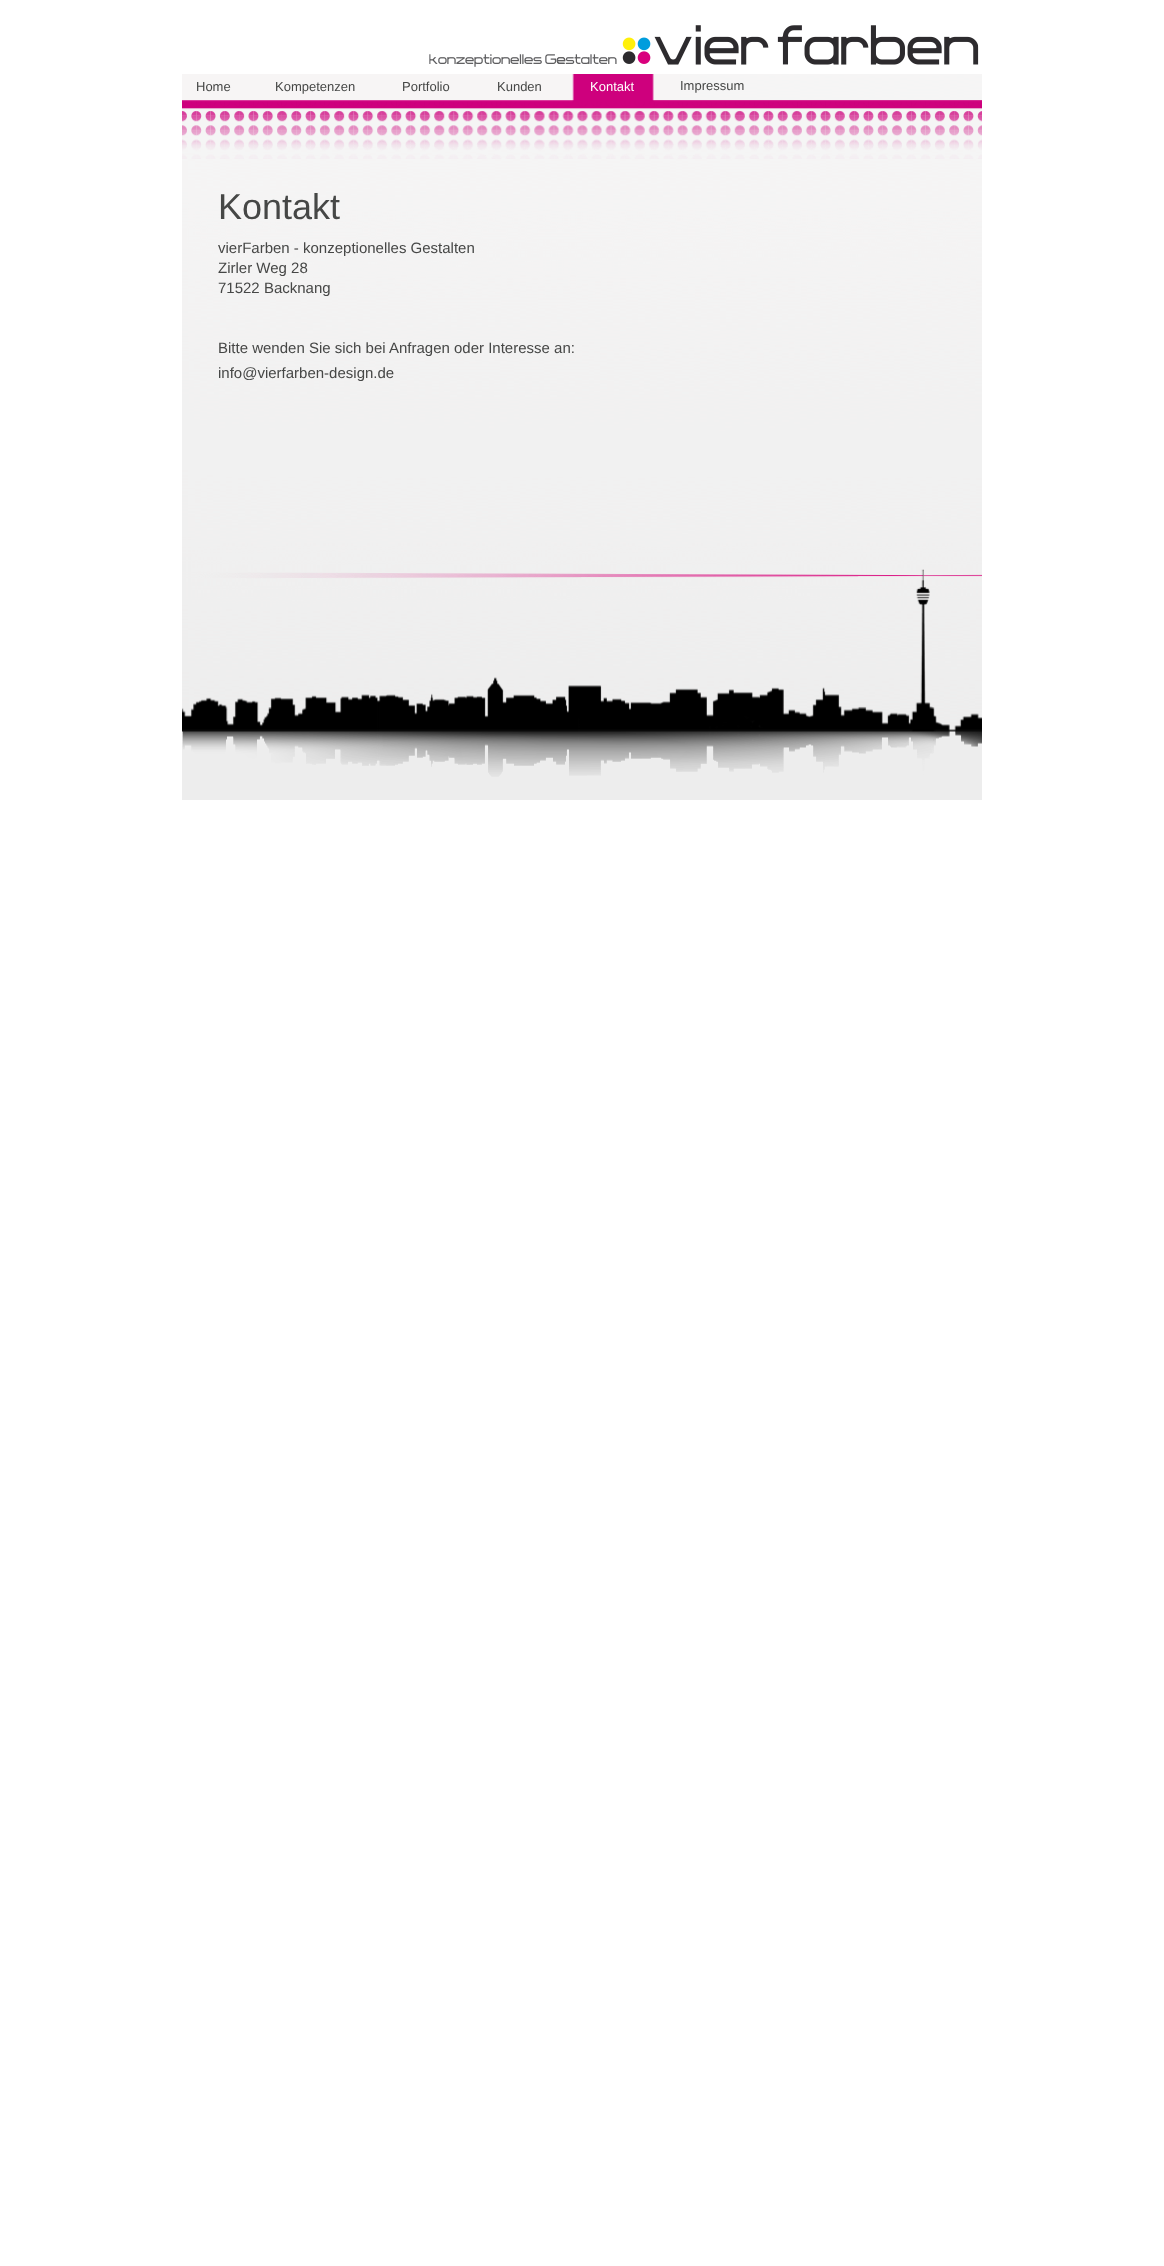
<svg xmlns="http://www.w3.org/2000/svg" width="1164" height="2266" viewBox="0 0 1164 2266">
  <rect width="100%" height="100%" fill="#ffffff"/>
  <image x="182" y="74" width="800" height="726" href="img1.png"/>
  <image x="429" y="25" width="550" height="42" href="img2.png"/>
  <image x="182" y="74" width="800" height="85" href="img3.png"/>
  <text x="196" y="91" font-family="Liberation Sans" font-size="13" fill="#464746">Home</text>
  <text x="275" y="91" font-family="Liberation Sans" font-size="13" fill="#464746">Kompetenzen</text>
  <text x="402" y="91" font-family="Liberation Sans" font-size="13" fill="#464746">Portfolio</text>
  <text x="497" y="91" font-family="Liberation Sans" font-size="13" fill="#464746">Kunden</text>
  <text x="590" y="91" font-family="Liberation Sans" font-size="13" fill="#fffefd">Kontakt</text>
  <text x="680" y="90" font-family="Liberation Sans" font-size="13" fill="#464746">Impressum</text>
  <text x="218" y="219" font-family="Liberation Sans" font-size="36" fill="#464746">Kontakt</text>
  <text x="218" y="253" font-family="Liberation Sans" font-size="15" fill="#464746">vierFarben - konzeptionelles Gestalten</text>
  <text x="218" y="273" font-family="Liberation Sans" font-size="15" fill="#464746">Zirler Weg 28</text>
  <text x="218" y="293" font-family="Liberation Sans" font-size="15" fill="#464746">71522 Backnang</text>
  <text x="218" y="353" font-family="Liberation Sans" font-size="15" fill="#464746">Bitte wenden Sie sich bei Anfragen oder Interesse an:</text>
  <text x="218" y="378" font-family="Liberation Sans" font-size="15" fill="#464746">info@vierfarben-design.de</text>
  <image x="182" y="569" width="800" height="208" href="img4.png"/>
</svg>
